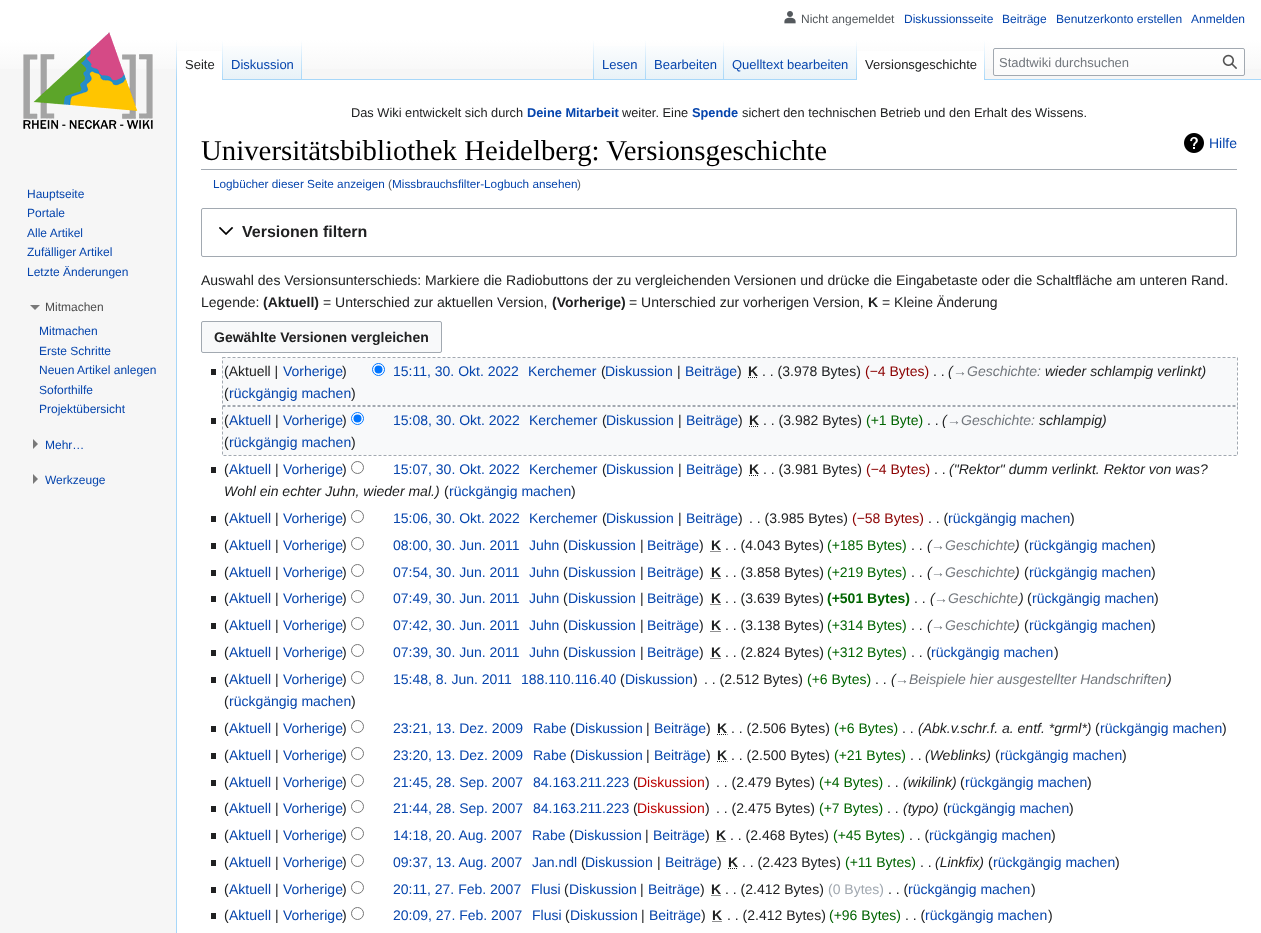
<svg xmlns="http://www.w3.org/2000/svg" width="1261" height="933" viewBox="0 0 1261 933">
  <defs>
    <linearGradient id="g1" gradientUnits="userSpaceOnUse" x1="631" y1="0" x2="631" y2="80"><stop offset="0.5" stop-color="#ffffff"/><stop offset="1" stop-color="#f6f6f6"/></linearGradient>
    <linearGradient id="g2" gradientUnits="userSpaceOnUse" x1="177" y1="40" x2="177" y2="80"><stop offset="0" stop-color="#a7d7f9" stop-opacity="0"/><stop offset="1" stop-color="#a7d7f9"/></linearGradient>
    <linearGradient id="g3" gradientUnits="userSpaceOnUse" x1="223" y1="40" x2="223" y2="80"><stop offset="0" stop-color="#ffffff"/><stop offset="1" stop-color="#a7d7f9"/></linearGradient>
    <linearGradient id="g4" gradientUnits="userSpaceOnUse" x1="263" y1="80" x2="263" y2="40"><stop offset="0" stop-color="#77c1f6"/><stop offset="0.03" stop-color="#e8f2f8"/><stop offset="1" stop-color="#ffffff"/></linearGradient>
    <linearGradient id="g5" gradientUnits="userSpaceOnUse" x1="302" y1="40" x2="302" y2="80"><stop offset="0" stop-color="#a7d7f9" stop-opacity="0"/><stop offset="1" stop-color="#a7d7f9"/></linearGradient>
    <linearGradient id="g6" gradientUnits="userSpaceOnUse" x1="594" y1="40" x2="594" y2="80"><stop offset="0" stop-color="#a7d7f9" stop-opacity="0"/><stop offset="1" stop-color="#a7d7f9"/></linearGradient>
    <linearGradient id="g7" gradientUnits="userSpaceOnUse" x1="620" y1="80" x2="620" y2="40"><stop offset="0" stop-color="#77c1f6"/><stop offset="0.03" stop-color="#e8f2f8"/><stop offset="1" stop-color="#ffffff"/></linearGradient>
    <linearGradient id="g8" gradientUnits="userSpaceOnUse" x1="646" y1="40" x2="646" y2="80"><stop offset="0" stop-color="#a7d7f9" stop-opacity="0"/><stop offset="1" stop-color="#a7d7f9"/></linearGradient>
    <linearGradient id="g9" gradientUnits="userSpaceOnUse" x1="685" y1="80" x2="685" y2="40"><stop offset="0" stop-color="#77c1f6"/><stop offset="0.03" stop-color="#e8f2f8"/><stop offset="1" stop-color="#ffffff"/></linearGradient>
    <linearGradient id="g10" gradientUnits="userSpaceOnUse" x1="724" y1="40" x2="724" y2="80"><stop offset="0" stop-color="#a7d7f9" stop-opacity="0"/><stop offset="1" stop-color="#a7d7f9"/></linearGradient>
    <linearGradient id="g11" gradientUnits="userSpaceOnUse" x1="791" y1="80" x2="791" y2="40"><stop offset="0" stop-color="#77c1f6"/><stop offset="0.03" stop-color="#e8f2f8"/><stop offset="1" stop-color="#ffffff"/></linearGradient>
    <linearGradient id="g12" gradientUnits="userSpaceOnUse" x1="857" y1="40" x2="857" y2="80"><stop offset="0" stop-color="#a7d7f9" stop-opacity="0"/><stop offset="1" stop-color="#a7d7f9"/></linearGradient>
    <linearGradient id="g13" gradientUnits="userSpaceOnUse" x1="985" y1="40" x2="985" y2="80"><stop offset="0" stop-color="#ffffff"/><stop offset="1" stop-color="#a7d7f9"/></linearGradient>
  </defs>
  <rect width="100%" height="100%" fill="#f6f6f6"/>
  <rect x="0" y="0" width="1261" height="69" fill="url(#g1)"/>
  <image x="784" y="11" width="12" height="13" href="img1.png"/>
  <text x="801" y="23" font-family="Liberation Sans" font-size="12" fill="#54595d">Nicht angemeldet</text>
  <text x="904" y="23" font-family="Liberation Sans" font-size="12" fill="#0645ad">Diskussionsseite</text>
  <text x="1002" y="23" font-family="Liberation Sans" font-size="12" fill="#0645ad">Beiträge</text>
  <text x="1056" y="23" font-family="Liberation Sans" font-size="12" fill="#0645ad">Benutzerkonto erstellen</text>
  <text x="1191" y="23" font-family="Liberation Sans" font-size="12" fill="#0645ad">Anmelden</text>
  <rect x="176" y="79" width="1" height="854" fill="#a7d7f9"/>
  <rect x="176" y="40" width="1" height="40" fill="url(#g2)"/>
  <rect x="177" y="51" width="45" height="29" fill="#ffffff"/>
  <rect x="222" y="40" width="1" height="40" fill="url(#g3)"/>
  <text x="185" y="69" font-family="Liberation Sans" font-size="13" fill="#202122">Seite</text>
  <rect x="223" y="46" width="79" height="34" fill="url(#g4)"/>
  <rect x="301" y="40" width="1" height="40" fill="url(#g5)"/>
  <text x="231" y="69" font-family="Liberation Sans" font-size="13" fill="#0645ad">Diskussion</text>
  <rect x="302" y="79" width="959" height="1" fill="#a7d7f9"/>
  <rect x="593" y="40" width="1" height="40" fill="url(#g6)"/>
  <rect x="594" y="46" width="52" height="33" fill="url(#g7)"/>
  <rect x="645" y="40" width="1" height="40" fill="url(#g8)"/>
  <text x="602" y="69" font-family="Liberation Sans" font-size="13" fill="#0645ad">Lesen</text>
  <rect x="646" y="46" width="78" height="33" fill="url(#g9)"/>
  <rect x="723" y="40" width="1" height="40" fill="url(#g10)"/>
  <text x="654" y="69" font-family="Liberation Sans" font-size="13" fill="#0645ad">Bearbeiten</text>
  <rect x="724" y="46" width="133" height="33" fill="url(#g11)"/>
  <rect x="856" y="40" width="1" height="40" fill="url(#g12)"/>
  <text x="732" y="69" font-family="Liberation Sans" font-size="13" fill="#0645ad">Quelltext bearbeiten</text>
  <rect x="857" y="51" width="127" height="29" fill="#ffffff"/>
  <rect x="984" y="40" width="1" height="40" fill="url(#g13)"/>
  <text x="865" y="69" font-family="Liberation Sans" font-size="13" fill="#202122">Versionsgeschichte</text>
  <rect x="993.5" y="48.5" width="251" height="27" rx="1.5" fill="#ffffff" fill-opacity="0.5" stroke="#a2a9b1"/>
  <text x="999" y="67" font-family="Liberation Sans" font-size="13" fill="#72777d">Stadtwiki durchsuchen</text>
  <image x="1222" y="54" width="15" height="15" href="img2.png"/>
  <image x="23" y="32" width="130" height="97" href="img3.png"/>
  <text x="27" y="198" font-family="Liberation Sans" font-size="12" fill="#0645ad">Hauptseite</text>
  <text x="27" y="217" font-family="Liberation Sans" font-size="12" fill="#0645ad">Portale</text>
  <text x="27" y="237" font-family="Liberation Sans" font-size="12" fill="#0645ad">Alle Artikel</text>
  <text x="27" y="256" font-family="Liberation Sans" font-size="12" fill="#0645ad">Zufälliger Artikel</text>
  <text x="27" y="276" font-family="Liberation Sans" font-size="12" fill="#0645ad">Letzte Änderungen</text>
  <path d="M40 305L35 310L30 305Z" fill="#797979"/>
  <text x="45" y="311" font-family="Liberation Sans" font-size="12" fill="#4d4d4d">Mitmachen</text>
  <text x="39" y="335" font-family="Liberation Sans" font-size="12" fill="#0645ad">Mitmachen</text>
  <text x="39" y="355" font-family="Liberation Sans" font-size="12" fill="#0645ad">Erste Schritte</text>
  <text x="39" y="374" font-family="Liberation Sans" font-size="12" fill="#0645ad">Neuen Artikel anlegen</text>
  <text x="39" y="394" font-family="Liberation Sans" font-size="12" fill="#0645ad">Soforthilfe</text>
  <text x="39" y="413" font-family="Liberation Sans" font-size="12" fill="#0645ad">Projektübersicht</text>
  <path d="M33 439L38 444L33 449Z" fill="#797979"/>
  <text x="45" y="449" font-family="Liberation Sans" font-size="12" fill="#0645ad">Mehr…</text>
  <path d="M33 474L38 479L33 484Z" fill="#797979"/>
  <text x="45" y="484" font-family="Liberation Sans" font-size="12" fill="#0645ad">Werkzeuge</text>
  <rect x="177" y="80" width="1084" height="853" fill="#ffffff"/>
  <text x="351" y="117" font-family="Liberation Sans" font-size="12.8" fill="#202122">Das Wiki entwickelt sich durch</text>
  <text x="527" y="117" font-family="Liberation Sans" font-size="12.8" font-weight="bold" fill="#0645ad">Deine Mitarbeit</text>
  <text x="622" y="117" font-family="Liberation Sans" font-size="12.8" fill="#202122">weiter. Eine</text>
  <text x="692" y="117" font-family="Liberation Sans" font-size="12.8" font-weight="bold" fill="#0645ad">Spende</text>
  <text x="742" y="117" font-family="Liberation Sans" font-size="12.8" fill="#202122">sichert den technischen Betrieb und den Erhalt des Wissens.</text>
  <rect x="201" y="169" width="1036" height="1" fill="#a2a9b1"/>
  <text x="201" y="160" font-family="Liberation Serif" font-size="28.8" fill="#000000">Universitätsbibliothek Heidelberg: Versionsgeschichte</text>
  <image x="1184" y="133" width="20" height="20" href="img4.png"/>
  <text x="1209" y="148" font-family="Liberation Sans" font-size="14" fill="#0645ad">Hilfe</text>
  <text x="213" y="188" font-family="Liberation Sans" font-size="11.75" fill="#0645ad">Logbücher dieser Seite anzeigen</text>
  <text x="388" y="188" font-family="Liberation Sans" font-size="11.75" fill="#54595d">(</text>
  <text x="392" y="188" font-family="Liberation Sans" font-size="11.75" fill="#0645ad">Missbrauchsfilter-Logbuch ansehen</text>
  <text x="577" y="188" font-family="Liberation Sans" font-size="11.75" fill="#54595d">)</text>
  <rect x="201.5" y="208.5" width="1035" height="48" rx="1.5" fill="none" stroke="#a2a9b1"/>
  <image x="219" y="227" width="15" height="8" href="img5.png"/>
  <text x="242" y="237" font-family="Liberation Sans" font-size="16" font-weight="bold" fill="#202122">Versionen filtern</text>
  <text x="201" y="285" font-family="Liberation Sans" font-size="14" fill="#202122">Auswahl des Versionsunterschieds: Markiere die Radiobuttons der zu vergleichenden Versionen und drücke die Eingabetaste oder die Schaltfläche am unteren Rand.</text>
  <text x="201" y="307" font-family="Liberation Sans" font-size="14" fill="#202122">Legende:</text>
  <text x="263" y="307" font-family="Liberation Sans" font-size="14" font-weight="bold" fill="#202122">(Aktuell)</text>
  <text x="323" y="307" font-family="Liberation Sans" font-size="14" fill="#202122">= Unterschied zur aktuellen Version,</text>
  <text x="552" y="307" font-family="Liberation Sans" font-size="14" font-weight="bold" fill="#202122">(Vorherige)</text>
  <text x="629" y="307" font-family="Liberation Sans" font-size="14" fill="#202122">= Unterschied zur vorherigen Version,</text>
  <text x="868" y="307" font-family="Liberation Sans" font-size="14" font-weight="bold" fill="#202122">K</text>
  <text x="882" y="307" font-family="Liberation Sans" font-size="14" fill="#202122">= Kleine Änderung</text>
  <rect x="201.5" y="321.5" width="240" height="31" rx="1.5" fill="#f8f9fa" stroke="#a2a9b1"/>
  <text x="214" y="342" font-family="Liberation Sans" font-size="14" font-weight="bold" fill="#202122">Gewählte Versionen vergleichen</text>
  <rect x="223" y="358" width="1014" height="47" fill="#f8f9fa"/>
  <rect x="211" y="369" width="5" height="6" fill="#202122"/>
  <text x="224" y="376" font-family="Liberation Sans" font-size="14" fill="#202122">(Aktuell |</text>
  <text x="283" y="376" font-family="Liberation Sans" font-size="14" fill="#0645ad">Vorherige</text>
  <text x="342" y="376" font-family="Liberation Sans" font-size="14" fill="#202122">)</text>
  <circle cx="378.5" cy="369.5" r="6" fill="#ffffff" stroke="#0075ff"/>
  <circle cx="378.5" cy="369.5" r="4" fill="#0075ff"/>
  <text x="393" y="376" font-family="Liberation Sans" font-size="14" fill="#0645ad">15:11, 30. Okt. 2022</text>
  <text x="528" y="376" font-family="Liberation Sans" font-size="14" fill="#0645ad">Kerchemer</text>
  <text x="601" y="376" font-family="Liberation Sans" font-size="14" fill="#202122">(</text>
  <text x="605" y="376" font-family="Liberation Sans" font-size="14" fill="#0645ad">Diskussion</text>
  <text x="677" y="376" font-family="Liberation Sans" font-size="14" fill="#202122">|</text>
  <text x="685" y="376" font-family="Liberation Sans" font-size="14" fill="#0645ad">Beiträge</text>
  <text x="737" y="376" font-family="Liberation Sans" font-size="14" fill="#202122">)</text>
  <text x="748" y="376" font-family="Liberation Sans" font-size="14" font-weight="bold" fill="#202122">K</text>
  <path d="M748 377.5H758" fill="none" stroke="#202122" stroke-dasharray="1 1"/>
  <text x="762" y="376" font-family="Liberation Sans" font-size="14" fill="#202122">. . (3.978 Bytes)</text>
  <text x="865" y="376" font-family="Liberation Sans" font-size="14" fill="#8b0000">(−4 Bytes)</text>
  <text x="933" y="376" font-family="Liberation Sans" font-size="14" fill="#202122">. .</text>
  <text x="948" y="376" font-family="Liberation Sans" font-size="14" font-style="italic" fill="#202122">(</text>
  <text x="953" y="376" font-family="Liberation Sans" font-size="14" font-style="italic" fill="#72777d">→Geschichte:</text>
  <text x="1045" y="376" font-family="Liberation Sans" font-size="14" font-style="italic" fill="#202122">wieder schlampig verlinkt)</text>
  <text x="224" y="398" font-family="Liberation Sans" font-size="14" fill="#202122">(</text>
  <text x="229" y="398" font-family="Liberation Sans" font-size="14" fill="#0645ad">rückgängig machen</text>
  <text x="351" y="398" font-family="Liberation Sans" font-size="14" fill="#202122">)</text>
  <path d="M222.5 357.5H1237.5V405.5H222.5Z" fill="none" stroke="#a2a9b1" stroke-dasharray="3 2"/>
  <rect x="223" y="407" width="1014" height="48" fill="#f8f9fa"/>
  <rect x="211" y="418" width="5" height="6" fill="#202122"/>
  <text x="224" y="425" font-family="Liberation Sans" font-size="14" fill="#202122">(</text>
  <text x="229" y="425" font-family="Liberation Sans" font-size="14" fill="#0645ad">Aktuell</text>
  <text x="275" y="425" font-family="Liberation Sans" font-size="14" fill="#202122">|</text>
  <text x="283" y="425" font-family="Liberation Sans" font-size="14" fill="#0645ad">Vorherige</text>
  <text x="342" y="425" font-family="Liberation Sans" font-size="14" fill="#202122">)</text>
  <circle cx="357.5" cy="418.5" r="6" fill="#ffffff" stroke="#0075ff"/>
  <circle cx="357.5" cy="418.5" r="4" fill="#0075ff"/>
  <text x="393" y="425" font-family="Liberation Sans" font-size="14" fill="#0645ad">15:08, 30. Okt. 2022</text>
  <text x="529" y="425" font-family="Liberation Sans" font-size="14" fill="#0645ad">Kerchemer</text>
  <text x="602" y="425" font-family="Liberation Sans" font-size="14" fill="#202122">(</text>
  <text x="606" y="425" font-family="Liberation Sans" font-size="14" fill="#0645ad">Diskussion</text>
  <text x="678" y="425" font-family="Liberation Sans" font-size="14" fill="#202122">|</text>
  <text x="686" y="425" font-family="Liberation Sans" font-size="14" fill="#0645ad">Beiträge</text>
  <text x="738" y="425" font-family="Liberation Sans" font-size="14" fill="#202122">)</text>
  <text x="749" y="425" font-family="Liberation Sans" font-size="14" font-weight="bold" fill="#202122">K</text>
  <path d="M749 426.5H759" fill="none" stroke="#202122" stroke-dasharray="1 1"/>
  <text x="763" y="425" font-family="Liberation Sans" font-size="14" fill="#202122">. . (3.982 Bytes)</text>
  <text x="866" y="425" font-family="Liberation Sans" font-size="14" fill="#006400">(+1 Byte)</text>
  <text x="927" y="425" font-family="Liberation Sans" font-size="14" fill="#202122">. .</text>
  <text x="942" y="425" font-family="Liberation Sans" font-size="14" font-style="italic" fill="#202122">(</text>
  <text x="947" y="425" font-family="Liberation Sans" font-size="14" font-style="italic" fill="#72777d">→Geschichte:</text>
  <text x="1039" y="425" font-family="Liberation Sans" font-size="14" font-style="italic" fill="#202122">schlampig)</text>
  <text x="224" y="447" font-family="Liberation Sans" font-size="14" fill="#202122">(</text>
  <text x="229" y="447" font-family="Liberation Sans" font-size="14" fill="#0645ad">rückgängig machen</text>
  <text x="351" y="447" font-family="Liberation Sans" font-size="14" fill="#202122">)</text>
  <path d="M222.5 406.5H1237.5V455.5H222.5Z" fill="none" stroke="#a2a9b1" stroke-dasharray="3 2"/>
  <rect x="211" y="467" width="5" height="6" fill="#202122"/>
  <text x="224" y="474" font-family="Liberation Sans" font-size="14" fill="#202122">(</text>
  <text x="229" y="474" font-family="Liberation Sans" font-size="14" fill="#0645ad">Aktuell</text>
  <text x="275" y="474" font-family="Liberation Sans" font-size="14" fill="#202122">|</text>
  <text x="283" y="474" font-family="Liberation Sans" font-size="14" fill="#0645ad">Vorherige</text>
  <text x="342" y="474" font-family="Liberation Sans" font-size="14" fill="#202122">)</text>
  <circle cx="357.5" cy="467.5" r="6" fill="none" stroke="#767676"/>
  <text x="393" y="474" font-family="Liberation Sans" font-size="14" fill="#0645ad">15:07, 30. Okt. 2022</text>
  <text x="529" y="474" font-family="Liberation Sans" font-size="14" fill="#0645ad">Kerchemer</text>
  <text x="602" y="474" font-family="Liberation Sans" font-size="14" fill="#202122">(</text>
  <text x="606" y="474" font-family="Liberation Sans" font-size="14" fill="#0645ad">Diskussion</text>
  <text x="678" y="474" font-family="Liberation Sans" font-size="14" fill="#202122">|</text>
  <text x="686" y="474" font-family="Liberation Sans" font-size="14" fill="#0645ad">Beiträge</text>
  <text x="738" y="474" font-family="Liberation Sans" font-size="14" fill="#202122">)</text>
  <text x="749" y="474" font-family="Liberation Sans" font-size="14" font-weight="bold" fill="#202122">K</text>
  <path d="M749 475.5H759" fill="none" stroke="#202122" stroke-dasharray="1 1"/>
  <text x="763" y="474" font-family="Liberation Sans" font-size="14" fill="#202122">. . (3.981 Bytes)</text>
  <text x="866" y="474" font-family="Liberation Sans" font-size="14" fill="#8b0000">(−4 Bytes)</text>
  <text x="934" y="474" font-family="Liberation Sans" font-size="14" fill="#202122">. .</text>
  <text x="949" y="474" font-family="Liberation Sans" font-size="14" font-style="italic" fill="#202122">("Rektor" dumm verlinkt. Rektor von was?</text>
  <text x="224" y="496" font-family="Liberation Sans" font-size="14" font-style="italic" fill="#202122">Wohl ein echter Juhn, wieder mal.)</text>
  <text x="444" y="496" font-family="Liberation Sans" font-size="14" fill="#202122">(</text>
  <text x="449" y="496" font-family="Liberation Sans" font-size="14" fill="#0645ad">rückgängig machen</text>
  <text x="571" y="496" font-family="Liberation Sans" font-size="14" fill="#202122">)</text>
  <rect x="211" y="516" width="5" height="6" fill="#202122"/>
  <text x="224" y="523" font-family="Liberation Sans" font-size="14" fill="#202122">(</text>
  <text x="229" y="523" font-family="Liberation Sans" font-size="14" fill="#0645ad">Aktuell</text>
  <text x="275" y="523" font-family="Liberation Sans" font-size="14" fill="#202122">|</text>
  <text x="283" y="523" font-family="Liberation Sans" font-size="14" fill="#0645ad">Vorherige</text>
  <text x="342" y="523" font-family="Liberation Sans" font-size="14" fill="#202122">)</text>
  <circle cx="357.5" cy="516.5" r="6" fill="none" stroke="#767676"/>
  <text x="393" y="523" font-family="Liberation Sans" font-size="14" fill="#0645ad">15:06, 30. Okt. 2022</text>
  <text x="529" y="523" font-family="Liberation Sans" font-size="14" fill="#0645ad">Kerchemer</text>
  <text x="602" y="523" font-family="Liberation Sans" font-size="14" fill="#202122">(</text>
  <text x="606" y="523" font-family="Liberation Sans" font-size="14" fill="#0645ad">Diskussion</text>
  <text x="678" y="523" font-family="Liberation Sans" font-size="14" fill="#202122">|</text>
  <text x="686" y="523" font-family="Liberation Sans" font-size="14" fill="#0645ad">Beiträge</text>
  <text x="738" y="523" font-family="Liberation Sans" font-size="14" fill="#202122">)</text>
  <text x="749" y="523" font-family="Liberation Sans" font-size="14" fill="#202122">. . (3.985 Bytes)</text>
  <text x="852" y="523" font-family="Liberation Sans" font-size="14" fill="#8b0000">(−58 Bytes)</text>
  <text x="928" y="523" font-family="Liberation Sans" font-size="14" fill="#202122">. . (</text>
  <text x="948" y="523" font-family="Liberation Sans" font-size="14" fill="#0645ad">rückgängig machen</text>
  <text x="1070" y="523" font-family="Liberation Sans" font-size="14" fill="#202122">)</text>
  <rect x="211" y="543" width="5" height="6" fill="#202122"/>
  <text x="224" y="550" font-family="Liberation Sans" font-size="14" fill="#202122">(</text>
  <text x="229" y="550" font-family="Liberation Sans" font-size="14" fill="#0645ad">Aktuell</text>
  <text x="275" y="550" font-family="Liberation Sans" font-size="14" fill="#202122">|</text>
  <text x="283" y="550" font-family="Liberation Sans" font-size="14" fill="#0645ad">Vorherige</text>
  <text x="342" y="550" font-family="Liberation Sans" font-size="14" fill="#202122">)</text>
  <circle cx="357.5" cy="543.5" r="6" fill="none" stroke="#767676"/>
  <text x="393" y="550" font-family="Liberation Sans" font-size="14" fill="#0645ad">08:00, 30. Jun. 2011</text>
  <text x="529" y="550" font-family="Liberation Sans" font-size="14" fill="#0645ad">Juhn</text>
  <text x="563" y="550" font-family="Liberation Sans" font-size="14" fill="#202122">(</text>
  <text x="568" y="550" font-family="Liberation Sans" font-size="14" fill="#0645ad">Diskussion</text>
  <text x="640" y="550" font-family="Liberation Sans" font-size="14" fill="#202122">|</text>
  <text x="647" y="550" font-family="Liberation Sans" font-size="14" fill="#0645ad">Beiträge</text>
  <text x="699" y="550" font-family="Liberation Sans" font-size="14" fill="#202122">)</text>
  <text x="711" y="550" font-family="Liberation Sans" font-size="14" font-weight="bold" fill="#202122">K</text>
  <path d="M710.5 551.5H721" fill="none" stroke="#202122" stroke-dasharray="1 1"/>
  <text x="725" y="550" font-family="Liberation Sans" font-size="14" fill="#202122">. . (4.043 Bytes)</text>
  <text x="827" y="550" font-family="Liberation Sans" font-size="14" fill="#006400">(+185 Bytes)</text>
  <text x="911" y="550" font-family="Liberation Sans" font-size="14" fill="#202122">. .</text>
  <text x="927" y="550" font-family="Liberation Sans" font-size="14" font-style="italic" fill="#202122">(</text>
  <text x="931" y="550" font-family="Liberation Sans" font-size="14" font-style="italic" fill="#72777d">→Geschichte</text>
  <text x="1015" y="550" font-family="Liberation Sans" font-size="14" font-style="italic" fill="#202122">)</text>
  <text x="1024" y="550" font-family="Liberation Sans" font-size="14" fill="#202122">(</text>
  <text x="1029" y="550" font-family="Liberation Sans" font-size="14" fill="#0645ad">rückgängig machen</text>
  <text x="1151" y="550" font-family="Liberation Sans" font-size="14" fill="#202122">)</text>
  <rect x="211" y="570" width="5" height="6" fill="#202122"/>
  <text x="224" y="577" font-family="Liberation Sans" font-size="14" fill="#202122">(</text>
  <text x="229" y="577" font-family="Liberation Sans" font-size="14" fill="#0645ad">Aktuell</text>
  <text x="275" y="577" font-family="Liberation Sans" font-size="14" fill="#202122">|</text>
  <text x="283" y="577" font-family="Liberation Sans" font-size="14" fill="#0645ad">Vorherige</text>
  <text x="342" y="577" font-family="Liberation Sans" font-size="14" fill="#202122">)</text>
  <circle cx="357.5" cy="570.5" r="6" fill="none" stroke="#767676"/>
  <text x="393" y="577" font-family="Liberation Sans" font-size="14" fill="#0645ad">07:54, 30. Jun. 2011</text>
  <text x="529" y="577" font-family="Liberation Sans" font-size="14" fill="#0645ad">Juhn</text>
  <text x="563" y="577" font-family="Liberation Sans" font-size="14" fill="#202122">(</text>
  <text x="568" y="577" font-family="Liberation Sans" font-size="14" fill="#0645ad">Diskussion</text>
  <text x="640" y="577" font-family="Liberation Sans" font-size="14" fill="#202122">|</text>
  <text x="647" y="577" font-family="Liberation Sans" font-size="14" fill="#0645ad">Beiträge</text>
  <text x="699" y="577" font-family="Liberation Sans" font-size="14" fill="#202122">)</text>
  <text x="711" y="577" font-family="Liberation Sans" font-size="14" font-weight="bold" fill="#202122">K</text>
  <path d="M710.5 578.5H721" fill="none" stroke="#202122" stroke-dasharray="1 1"/>
  <text x="725" y="577" font-family="Liberation Sans" font-size="14" fill="#202122">. . (3.858 Bytes)</text>
  <text x="827" y="577" font-family="Liberation Sans" font-size="14" fill="#006400">(+219 Bytes)</text>
  <text x="911" y="577" font-family="Liberation Sans" font-size="14" fill="#202122">. .</text>
  <text x="927" y="577" font-family="Liberation Sans" font-size="14" font-style="italic" fill="#202122">(</text>
  <text x="931" y="577" font-family="Liberation Sans" font-size="14" font-style="italic" fill="#72777d">→Geschichte</text>
  <text x="1015" y="577" font-family="Liberation Sans" font-size="14" font-style="italic" fill="#202122">)</text>
  <text x="1024" y="577" font-family="Liberation Sans" font-size="14" fill="#202122">(</text>
  <text x="1029" y="577" font-family="Liberation Sans" font-size="14" fill="#0645ad">rückgängig machen</text>
  <text x="1151" y="577" font-family="Liberation Sans" font-size="14" fill="#202122">)</text>
  <rect x="211" y="596" width="5" height="6" fill="#202122"/>
  <text x="224" y="603" font-family="Liberation Sans" font-size="14" fill="#202122">(</text>
  <text x="229" y="603" font-family="Liberation Sans" font-size="14" fill="#0645ad">Aktuell</text>
  <text x="275" y="603" font-family="Liberation Sans" font-size="14" fill="#202122">|</text>
  <text x="283" y="603" font-family="Liberation Sans" font-size="14" fill="#0645ad">Vorherige</text>
  <text x="342" y="603" font-family="Liberation Sans" font-size="14" fill="#202122">)</text>
  <circle cx="357.5" cy="596.5" r="6" fill="none" stroke="#767676"/>
  <text x="393" y="603" font-family="Liberation Sans" font-size="14" fill="#0645ad">07:49, 30. Jun. 2011</text>
  <text x="529" y="603" font-family="Liberation Sans" font-size="14" fill="#0645ad">Juhn</text>
  <text x="563" y="603" font-family="Liberation Sans" font-size="14" fill="#202122">(</text>
  <text x="568" y="603" font-family="Liberation Sans" font-size="14" fill="#0645ad">Diskussion</text>
  <text x="640" y="603" font-family="Liberation Sans" font-size="14" fill="#202122">|</text>
  <text x="647" y="603" font-family="Liberation Sans" font-size="14" fill="#0645ad">Beiträge</text>
  <text x="699" y="603" font-family="Liberation Sans" font-size="14" fill="#202122">)</text>
  <text x="711" y="603" font-family="Liberation Sans" font-size="14" font-weight="bold" fill="#202122">K</text>
  <path d="M710.5 604.5H721" fill="none" stroke="#202122" stroke-dasharray="1 1"/>
  <text x="725" y="603" font-family="Liberation Sans" font-size="14" fill="#202122">. . (3.639 Bytes)</text>
  <text x="827" y="603" font-family="Liberation Sans" font-size="14" font-weight="bold" fill="#006400">(+501 Bytes)</text>
  <text x="914" y="603" font-family="Liberation Sans" font-size="14" fill="#202122">. .</text>
  <text x="930" y="603" font-family="Liberation Sans" font-size="14" font-style="italic" fill="#202122">(</text>
  <text x="934" y="603" font-family="Liberation Sans" font-size="14" font-style="italic" fill="#72777d">→Geschichte</text>
  <text x="1019" y="603" font-family="Liberation Sans" font-size="14" font-style="italic" fill="#202122">)</text>
  <text x="1027" y="603" font-family="Liberation Sans" font-size="14" fill="#202122">(</text>
  <text x="1032" y="603" font-family="Liberation Sans" font-size="14" fill="#0645ad">rückgängig machen</text>
  <text x="1154" y="603" font-family="Liberation Sans" font-size="14" fill="#202122">)</text>
  <rect x="211" y="623" width="5" height="6" fill="#202122"/>
  <text x="224" y="630" font-family="Liberation Sans" font-size="14" fill="#202122">(</text>
  <text x="229" y="630" font-family="Liberation Sans" font-size="14" fill="#0645ad">Aktuell</text>
  <text x="275" y="630" font-family="Liberation Sans" font-size="14" fill="#202122">|</text>
  <text x="283" y="630" font-family="Liberation Sans" font-size="14" fill="#0645ad">Vorherige</text>
  <text x="342" y="630" font-family="Liberation Sans" font-size="14" fill="#202122">)</text>
  <circle cx="357.5" cy="623.5" r="6" fill="none" stroke="#767676"/>
  <text x="393" y="630" font-family="Liberation Sans" font-size="14" fill="#0645ad">07:42, 30. Jun. 2011</text>
  <text x="529" y="630" font-family="Liberation Sans" font-size="14" fill="#0645ad">Juhn</text>
  <text x="563" y="630" font-family="Liberation Sans" font-size="14" fill="#202122">(</text>
  <text x="568" y="630" font-family="Liberation Sans" font-size="14" fill="#0645ad">Diskussion</text>
  <text x="640" y="630" font-family="Liberation Sans" font-size="14" fill="#202122">|</text>
  <text x="647" y="630" font-family="Liberation Sans" font-size="14" fill="#0645ad">Beiträge</text>
  <text x="699" y="630" font-family="Liberation Sans" font-size="14" fill="#202122">)</text>
  <text x="711" y="630" font-family="Liberation Sans" font-size="14" font-weight="bold" fill="#202122">K</text>
  <path d="M710.5 631.5H721" fill="none" stroke="#202122" stroke-dasharray="1 1"/>
  <text x="725" y="630" font-family="Liberation Sans" font-size="14" fill="#202122">. . (3.138 Bytes)</text>
  <text x="827" y="630" font-family="Liberation Sans" font-size="14" fill="#006400">(+314 Bytes)</text>
  <text x="911" y="630" font-family="Liberation Sans" font-size="14" fill="#202122">. .</text>
  <text x="927" y="630" font-family="Liberation Sans" font-size="14" font-style="italic" fill="#202122">(</text>
  <text x="931" y="630" font-family="Liberation Sans" font-size="14" font-style="italic" fill="#72777d">→Geschichte</text>
  <text x="1015" y="630" font-family="Liberation Sans" font-size="14" font-style="italic" fill="#202122">)</text>
  <text x="1024" y="630" font-family="Liberation Sans" font-size="14" fill="#202122">(</text>
  <text x="1029" y="630" font-family="Liberation Sans" font-size="14" fill="#0645ad">rückgängig machen</text>
  <text x="1151" y="630" font-family="Liberation Sans" font-size="14" fill="#202122">)</text>
  <rect x="211" y="650" width="5" height="6" fill="#202122"/>
  <text x="224" y="657" font-family="Liberation Sans" font-size="14" fill="#202122">(</text>
  <text x="229" y="657" font-family="Liberation Sans" font-size="14" fill="#0645ad">Aktuell</text>
  <text x="275" y="657" font-family="Liberation Sans" font-size="14" fill="#202122">|</text>
  <text x="283" y="657" font-family="Liberation Sans" font-size="14" fill="#0645ad">Vorherige</text>
  <text x="342" y="657" font-family="Liberation Sans" font-size="14" fill="#202122">)</text>
  <circle cx="357.5" cy="650.5" r="6" fill="none" stroke="#767676"/>
  <text x="393" y="657" font-family="Liberation Sans" font-size="14" fill="#0645ad">07:39, 30. Jun. 2011</text>
  <text x="529" y="657" font-family="Liberation Sans" font-size="14" fill="#0645ad">Juhn</text>
  <text x="563" y="657" font-family="Liberation Sans" font-size="14" fill="#202122">(</text>
  <text x="568" y="657" font-family="Liberation Sans" font-size="14" fill="#0645ad">Diskussion</text>
  <text x="640" y="657" font-family="Liberation Sans" font-size="14" fill="#202122">|</text>
  <text x="647" y="657" font-family="Liberation Sans" font-size="14" fill="#0645ad">Beiträge</text>
  <text x="699" y="657" font-family="Liberation Sans" font-size="14" fill="#202122">)</text>
  <text x="711" y="657" font-family="Liberation Sans" font-size="14" font-weight="bold" fill="#202122">K</text>
  <path d="M710.5 658.5H721" fill="none" stroke="#202122" stroke-dasharray="1 1"/>
  <text x="725" y="657" font-family="Liberation Sans" font-size="14" fill="#202122">. . (2.824 Bytes)</text>
  <text x="827" y="657" font-family="Liberation Sans" font-size="14" fill="#006400">(+312 Bytes)</text>
  <text x="911" y="657" font-family="Liberation Sans" font-size="14" fill="#202122">. . (</text>
  <text x="931" y="657" font-family="Liberation Sans" font-size="14" fill="#0645ad">rückgängig machen</text>
  <text x="1054" y="657" font-family="Liberation Sans" font-size="14" fill="#202122">)</text>
  <rect x="211" y="677" width="5" height="6" fill="#202122"/>
  <text x="224" y="684" font-family="Liberation Sans" font-size="14" fill="#202122">(</text>
  <text x="229" y="684" font-family="Liberation Sans" font-size="14" fill="#0645ad">Aktuell</text>
  <text x="275" y="684" font-family="Liberation Sans" font-size="14" fill="#202122">|</text>
  <text x="283" y="684" font-family="Liberation Sans" font-size="14" fill="#0645ad">Vorherige</text>
  <text x="342" y="684" font-family="Liberation Sans" font-size="14" fill="#202122">)</text>
  <circle cx="357.5" cy="677.5" r="6" fill="none" stroke="#767676"/>
  <text x="393" y="684" font-family="Liberation Sans" font-size="14" fill="#0645ad">15:48, 8. Jun. 2011</text>
  <text x="521" y="684" font-family="Liberation Sans" font-size="14" fill="#0645ad">188.110.116.40</text>
  <text x="620" y="684" font-family="Liberation Sans" font-size="14" fill="#202122">(</text>
  <text x="625" y="684" font-family="Liberation Sans" font-size="14" fill="#0645ad">Diskussion</text>
  <text x="693" y="684" font-family="Liberation Sans" font-size="14" fill="#202122">)</text>
  <text x="704" y="684" font-family="Liberation Sans" font-size="14" fill="#202122">. . (2.512 Bytes)</text>
  <text x="807" y="684" font-family="Liberation Sans" font-size="14" fill="#006400">(+6 Bytes)</text>
  <text x="875" y="684" font-family="Liberation Sans" font-size="14" fill="#202122">. .</text>
  <text x="891" y="684" font-family="Liberation Sans" font-size="14" font-style="italic" fill="#202122">(</text>
  <text x="895" y="684" font-family="Liberation Sans" font-size="14" font-style="italic" fill="#72777d">→Beispiele hier ausgestellter Handschriften</text>
  <text x="1167" y="684" font-family="Liberation Sans" font-size="14" font-style="italic" fill="#202122">)</text>
  <text x="224" y="706" font-family="Liberation Sans" font-size="14" fill="#202122">(</text>
  <text x="229" y="706" font-family="Liberation Sans" font-size="14" fill="#0645ad">rückgängig machen</text>
  <text x="351" y="706" font-family="Liberation Sans" font-size="14" fill="#202122">)</text>
  <rect x="211" y="726" width="5" height="6" fill="#202122"/>
  <text x="224" y="733" font-family="Liberation Sans" font-size="14" fill="#202122">(</text>
  <text x="229" y="733" font-family="Liberation Sans" font-size="14" fill="#0645ad">Aktuell</text>
  <text x="275" y="733" font-family="Liberation Sans" font-size="14" fill="#202122">|</text>
  <text x="283" y="733" font-family="Liberation Sans" font-size="14" fill="#0645ad">Vorherige</text>
  <text x="342" y="733" font-family="Liberation Sans" font-size="14" fill="#202122">)</text>
  <circle cx="357.5" cy="726.5" r="6" fill="none" stroke="#767676"/>
  <text x="393" y="733" font-family="Liberation Sans" font-size="14" fill="#0645ad">23:21, 13. Dez. 2009</text>
  <text x="533" y="733" font-family="Liberation Sans" font-size="14" fill="#0645ad">Rabe</text>
  <text x="570" y="733" font-family="Liberation Sans" font-size="14" fill="#202122">(</text>
  <text x="575" y="733" font-family="Liberation Sans" font-size="14" fill="#0645ad">Diskussion</text>
  <text x="646" y="733" font-family="Liberation Sans" font-size="14" fill="#202122">|</text>
  <text x="654" y="733" font-family="Liberation Sans" font-size="14" fill="#0645ad">Beiträge</text>
  <text x="706" y="733" font-family="Liberation Sans" font-size="14" fill="#202122">)</text>
  <text x="717" y="733" font-family="Liberation Sans" font-size="14" font-weight="bold" fill="#202122">K</text>
  <path d="M717 734.5H727.5" fill="none" stroke="#202122" stroke-dasharray="1 1"/>
  <text x="731" y="733" font-family="Liberation Sans" font-size="14" fill="#202122">. . (2.506 Bytes)</text>
  <text x="834" y="733" font-family="Liberation Sans" font-size="14" fill="#006400">(+6 Bytes)</text>
  <text x="902" y="733" font-family="Liberation Sans" font-size="14" fill="#202122">. .</text>
  <text x="918" y="733" font-family="Liberation Sans" font-size="14" font-style="italic" fill="#202122">(Abk.v.schr.f. a. entf. *grml*)</text>
  <text x="1095" y="733" font-family="Liberation Sans" font-size="14" fill="#202122">(</text>
  <text x="1100" y="733" font-family="Liberation Sans" font-size="14" fill="#0645ad">rückgängig machen</text>
  <text x="1222" y="733" font-family="Liberation Sans" font-size="14" fill="#202122">)</text>
  <rect x="211" y="753" width="5" height="6" fill="#202122"/>
  <text x="224" y="760" font-family="Liberation Sans" font-size="14" fill="#202122">(</text>
  <text x="229" y="760" font-family="Liberation Sans" font-size="14" fill="#0645ad">Aktuell</text>
  <text x="275" y="760" font-family="Liberation Sans" font-size="14" fill="#202122">|</text>
  <text x="283" y="760" font-family="Liberation Sans" font-size="14" fill="#0645ad">Vorherige</text>
  <text x="342" y="760" font-family="Liberation Sans" font-size="14" fill="#202122">)</text>
  <circle cx="357.5" cy="753.5" r="6" fill="none" stroke="#767676"/>
  <text x="393" y="760" font-family="Liberation Sans" font-size="14" fill="#0645ad">23:20, 13. Dez. 2009</text>
  <text x="533" y="760" font-family="Liberation Sans" font-size="14" fill="#0645ad">Rabe</text>
  <text x="570" y="760" font-family="Liberation Sans" font-size="14" fill="#202122">(</text>
  <text x="575" y="760" font-family="Liberation Sans" font-size="14" fill="#0645ad">Diskussion</text>
  <text x="646" y="760" font-family="Liberation Sans" font-size="14" fill="#202122">|</text>
  <text x="654" y="760" font-family="Liberation Sans" font-size="14" fill="#0645ad">Beiträge</text>
  <text x="706" y="760" font-family="Liberation Sans" font-size="14" fill="#202122">)</text>
  <text x="717" y="760" font-family="Liberation Sans" font-size="14" font-weight="bold" fill="#202122">K</text>
  <path d="M717 761.5H727.5" fill="none" stroke="#202122" stroke-dasharray="1 1"/>
  <text x="731" y="760" font-family="Liberation Sans" font-size="14" fill="#202122">. . (2.500 Bytes)</text>
  <text x="834" y="760" font-family="Liberation Sans" font-size="14" fill="#006400">(+21 Bytes)</text>
  <text x="910" y="760" font-family="Liberation Sans" font-size="14" fill="#202122">. .</text>
  <text x="925" y="760" font-family="Liberation Sans" font-size="14" font-style="italic" fill="#202122">(Weblinks)</text>
  <text x="995" y="760" font-family="Liberation Sans" font-size="14" fill="#202122">(</text>
  <text x="1000" y="760" font-family="Liberation Sans" font-size="14" fill="#0645ad">rückgängig machen</text>
  <text x="1122" y="760" font-family="Liberation Sans" font-size="14" fill="#202122">)</text>
  <rect x="211" y="780" width="5" height="6" fill="#202122"/>
  <text x="224" y="787" font-family="Liberation Sans" font-size="14" fill="#202122">(</text>
  <text x="229" y="787" font-family="Liberation Sans" font-size="14" fill="#0645ad">Aktuell</text>
  <text x="275" y="787" font-family="Liberation Sans" font-size="14" fill="#202122">|</text>
  <text x="283" y="787" font-family="Liberation Sans" font-size="14" fill="#0645ad">Vorherige</text>
  <text x="342" y="787" font-family="Liberation Sans" font-size="14" fill="#202122">)</text>
  <circle cx="357.5" cy="780.5" r="6" fill="none" stroke="#767676"/>
  <text x="393" y="787" font-family="Liberation Sans" font-size="14" fill="#0645ad">21:45, 28. Sep. 2007</text>
  <text x="533" y="787" font-family="Liberation Sans" font-size="14" fill="#0645ad">84.163.211.223</text>
  <text x="633" y="787" font-family="Liberation Sans" font-size="14" fill="#202122">(</text>
  <text x="637" y="787" font-family="Liberation Sans" font-size="14" fill="#ba0000">Diskussion</text>
  <text x="705" y="787" font-family="Liberation Sans" font-size="14" fill="#202122">)</text>
  <text x="716" y="787" font-family="Liberation Sans" font-size="14" fill="#202122">. . (2.479 Bytes)</text>
  <text x="819" y="787" font-family="Liberation Sans" font-size="14" fill="#006400">(+4 Bytes)</text>
  <text x="887" y="787" font-family="Liberation Sans" font-size="14" fill="#202122">. .</text>
  <text x="903" y="787" font-family="Liberation Sans" font-size="14" font-style="italic" fill="#202122">(wikilink)</text>
  <text x="960" y="787" font-family="Liberation Sans" font-size="14" fill="#202122">(</text>
  <text x="965" y="787" font-family="Liberation Sans" font-size="14" fill="#0645ad">rückgängig machen</text>
  <text x="1087" y="787" font-family="Liberation Sans" font-size="14" fill="#202122">)</text>
  <rect x="211" y="806" width="5" height="6" fill="#202122"/>
  <text x="224" y="813" font-family="Liberation Sans" font-size="14" fill="#202122">(</text>
  <text x="229" y="813" font-family="Liberation Sans" font-size="14" fill="#0645ad">Aktuell</text>
  <text x="275" y="813" font-family="Liberation Sans" font-size="14" fill="#202122">|</text>
  <text x="283" y="813" font-family="Liberation Sans" font-size="14" fill="#0645ad">Vorherige</text>
  <text x="342" y="813" font-family="Liberation Sans" font-size="14" fill="#202122">)</text>
  <circle cx="357.5" cy="806.5" r="6" fill="none" stroke="#767676"/>
  <text x="393" y="813" font-family="Liberation Sans" font-size="14" fill="#0645ad">21:44, 28. Sep. 2007</text>
  <text x="533" y="813" font-family="Liberation Sans" font-size="14" fill="#0645ad">84.163.211.223</text>
  <text x="633" y="813" font-family="Liberation Sans" font-size="14" fill="#202122">(</text>
  <text x="637" y="813" font-family="Liberation Sans" font-size="14" fill="#ba0000">Diskussion</text>
  <text x="705" y="813" font-family="Liberation Sans" font-size="14" fill="#202122">)</text>
  <text x="716" y="813" font-family="Liberation Sans" font-size="14" fill="#202122">. . (2.475 Bytes)</text>
  <text x="819" y="813" font-family="Liberation Sans" font-size="14" fill="#006400">(+7 Bytes)</text>
  <text x="887" y="813" font-family="Liberation Sans" font-size="14" fill="#202122">. .</text>
  <text x="903" y="813" font-family="Liberation Sans" font-size="14" font-style="italic" fill="#202122">(typo)</text>
  <text x="943" y="813" font-family="Liberation Sans" font-size="14" fill="#202122">(</text>
  <text x="947" y="813" font-family="Liberation Sans" font-size="14" fill="#0645ad">rückgängig machen</text>
  <text x="1069" y="813" font-family="Liberation Sans" font-size="14" fill="#202122">)</text>
  <rect x="211" y="833" width="5" height="6" fill="#202122"/>
  <text x="224" y="840" font-family="Liberation Sans" font-size="14" fill="#202122">(</text>
  <text x="229" y="840" font-family="Liberation Sans" font-size="14" fill="#0645ad">Aktuell</text>
  <text x="275" y="840" font-family="Liberation Sans" font-size="14" fill="#202122">|</text>
  <text x="283" y="840" font-family="Liberation Sans" font-size="14" fill="#0645ad">Vorherige</text>
  <text x="342" y="840" font-family="Liberation Sans" font-size="14" fill="#202122">)</text>
  <circle cx="357.5" cy="833.5" r="6" fill="none" stroke="#767676"/>
  <text x="393" y="840" font-family="Liberation Sans" font-size="14" fill="#0645ad">14:18, 20. Aug. 2007</text>
  <text x="532" y="840" font-family="Liberation Sans" font-size="14" fill="#0645ad">Rabe</text>
  <text x="569" y="840" font-family="Liberation Sans" font-size="14" fill="#202122">(</text>
  <text x="574" y="840" font-family="Liberation Sans" font-size="14" fill="#0645ad">Diskussion</text>
  <text x="645" y="840" font-family="Liberation Sans" font-size="14" fill="#202122">|</text>
  <text x="653" y="840" font-family="Liberation Sans" font-size="14" fill="#0645ad">Beiträge</text>
  <text x="705" y="840" font-family="Liberation Sans" font-size="14" fill="#202122">)</text>
  <text x="716" y="840" font-family="Liberation Sans" font-size="14" font-weight="bold" fill="#202122">K</text>
  <path d="M716.5 841.5H726.5" fill="none" stroke="#202122" stroke-dasharray="1 1"/>
  <text x="730" y="840" font-family="Liberation Sans" font-size="14" fill="#202122">. . (2.468 Bytes)</text>
  <text x="833" y="840" font-family="Liberation Sans" font-size="14" fill="#006400">(+45 Bytes)</text>
  <text x="909" y="840" font-family="Liberation Sans" font-size="14" fill="#202122">. . (</text>
  <text x="929" y="840" font-family="Liberation Sans" font-size="14" fill="#0645ad">rückgängig machen</text>
  <text x="1051" y="840" font-family="Liberation Sans" font-size="14" fill="#202122">)</text>
  <rect x="211" y="860" width="5" height="6" fill="#202122"/>
  <text x="224" y="867" font-family="Liberation Sans" font-size="14" fill="#202122">(</text>
  <text x="229" y="867" font-family="Liberation Sans" font-size="14" fill="#0645ad">Aktuell</text>
  <text x="275" y="867" font-family="Liberation Sans" font-size="14" fill="#202122">|</text>
  <text x="283" y="867" font-family="Liberation Sans" font-size="14" fill="#0645ad">Vorherige</text>
  <text x="342" y="867" font-family="Liberation Sans" font-size="14" fill="#202122">)</text>
  <circle cx="357.5" cy="860.5" r="6" fill="none" stroke="#767676"/>
  <text x="393" y="867" font-family="Liberation Sans" font-size="14" fill="#0645ad">09:37, 13. Aug. 2007</text>
  <text x="532" y="867" font-family="Liberation Sans" font-size="14" fill="#0645ad">Jan.ndl</text>
  <text x="581" y="867" font-family="Liberation Sans" font-size="14" fill="#202122">(</text>
  <text x="585" y="867" font-family="Liberation Sans" font-size="14" fill="#0645ad">Diskussion</text>
  <text x="657" y="867" font-family="Liberation Sans" font-size="14" fill="#202122">|</text>
  <text x="665" y="867" font-family="Liberation Sans" font-size="14" fill="#0645ad">Beiträge</text>
  <text x="717" y="867" font-family="Liberation Sans" font-size="14" fill="#202122">)</text>
  <text x="728" y="867" font-family="Liberation Sans" font-size="14" font-weight="bold" fill="#202122">K</text>
  <path d="M728 868.5H738" fill="none" stroke="#202122" stroke-dasharray="1 1"/>
  <text x="742" y="867" font-family="Liberation Sans" font-size="14" fill="#202122">. . (2.423 Bytes)</text>
  <text x="845" y="867" font-family="Liberation Sans" font-size="14" fill="#006400">(+11 Bytes)</text>
  <text x="920" y="867" font-family="Liberation Sans" font-size="14" fill="#202122">. .</text>
  <text x="935" y="867" font-family="Liberation Sans" font-size="14" font-style="italic" fill="#202122">(Linkfix)</text>
  <text x="988" y="867" font-family="Liberation Sans" font-size="14" fill="#202122">(</text>
  <text x="993" y="867" font-family="Liberation Sans" font-size="14" fill="#0645ad">rückgängig machen</text>
  <text x="1115" y="867" font-family="Liberation Sans" font-size="14" fill="#202122">)</text>
  <rect x="211" y="887" width="5" height="6" fill="#202122"/>
  <text x="224" y="894" font-family="Liberation Sans" font-size="14" fill="#202122">(</text>
  <text x="229" y="894" font-family="Liberation Sans" font-size="14" fill="#0645ad">Aktuell</text>
  <text x="275" y="894" font-family="Liberation Sans" font-size="14" fill="#202122">|</text>
  <text x="283" y="894" font-family="Liberation Sans" font-size="14" fill="#0645ad">Vorherige</text>
  <text x="342" y="894" font-family="Liberation Sans" font-size="14" fill="#202122">)</text>
  <circle cx="357.5" cy="887.5" r="6" fill="none" stroke="#767676"/>
  <text x="393" y="894" font-family="Liberation Sans" font-size="14" fill="#0645ad">20:11, 27. Feb. 2007</text>
  <text x="531" y="894" font-family="Liberation Sans" font-size="14" fill="#0645ad">Flusi</text>
  <text x="564" y="894" font-family="Liberation Sans" font-size="14" fill="#202122">(</text>
  <text x="569" y="894" font-family="Liberation Sans" font-size="14" fill="#0645ad">Diskussion</text>
  <text x="640" y="894" font-family="Liberation Sans" font-size="14" fill="#202122">|</text>
  <text x="648" y="894" font-family="Liberation Sans" font-size="14" fill="#0645ad">Beiträge</text>
  <text x="700" y="894" font-family="Liberation Sans" font-size="14" fill="#202122">)</text>
  <text x="711" y="894" font-family="Liberation Sans" font-size="14" font-weight="bold" fill="#202122">K</text>
  <path d="M711.5 895.5H721.5" fill="none" stroke="#202122" stroke-dasharray="1 1"/>
  <text x="725" y="894" font-family="Liberation Sans" font-size="14" fill="#202122">. . (2.412 Bytes)</text>
  <text x="828" y="894" font-family="Liberation Sans" font-size="14" fill="#a2a9b1">(0 Bytes)</text>
  <text x="888" y="894" font-family="Liberation Sans" font-size="14" fill="#202122">. . (</text>
  <text x="908" y="894" font-family="Liberation Sans" font-size="14" fill="#0645ad">rückgängig machen</text>
  <text x="1031" y="894" font-family="Liberation Sans" font-size="14" fill="#202122">)</text>
  <rect x="211" y="913" width="5" height="6" fill="#202122"/>
  <text x="224" y="920" font-family="Liberation Sans" font-size="14" fill="#202122">(</text>
  <text x="229" y="920" font-family="Liberation Sans" font-size="14" fill="#0645ad">Aktuell</text>
  <text x="275" y="920" font-family="Liberation Sans" font-size="14" fill="#202122">|</text>
  <text x="283" y="920" font-family="Liberation Sans" font-size="14" fill="#0645ad">Vorherige</text>
  <text x="342" y="920" font-family="Liberation Sans" font-size="14" fill="#202122">)</text>
  <circle cx="357.5" cy="913.5" r="6" fill="none" stroke="#767676"/>
  <text x="393" y="920" font-family="Liberation Sans" font-size="14" fill="#0645ad">20:09, 27. Feb. 2007</text>
  <text x="532" y="920" font-family="Liberation Sans" font-size="14" fill="#0645ad">Flusi</text>
  <text x="565" y="920" font-family="Liberation Sans" font-size="14" fill="#202122">(</text>
  <text x="570" y="920" font-family="Liberation Sans" font-size="14" fill="#0645ad">Diskussion</text>
  <text x="641" y="920" font-family="Liberation Sans" font-size="14" fill="#202122">|</text>
  <text x="649" y="920" font-family="Liberation Sans" font-size="14" fill="#0645ad">Beiträge</text>
  <text x="701" y="920" font-family="Liberation Sans" font-size="14" fill="#202122">)</text>
  <text x="712" y="920" font-family="Liberation Sans" font-size="14" font-weight="bold" fill="#202122">K</text>
  <path d="M712.5 921.5H722.5" fill="none" stroke="#202122" stroke-dasharray="1 1"/>
  <text x="727" y="920" font-family="Liberation Sans" font-size="14" fill="#202122">. . (2.412 Bytes)</text>
  <text x="829" y="920" font-family="Liberation Sans" font-size="14" fill="#006400">(+96 Bytes)</text>
  <text x="905" y="920" font-family="Liberation Sans" font-size="14" fill="#202122">. . (</text>
  <text x="925" y="920" font-family="Liberation Sans" font-size="14" fill="#0645ad">rückgängig machen</text>
  <text x="1048" y="920" font-family="Liberation Sans" font-size="14" fill="#202122">)</text>
</svg>
